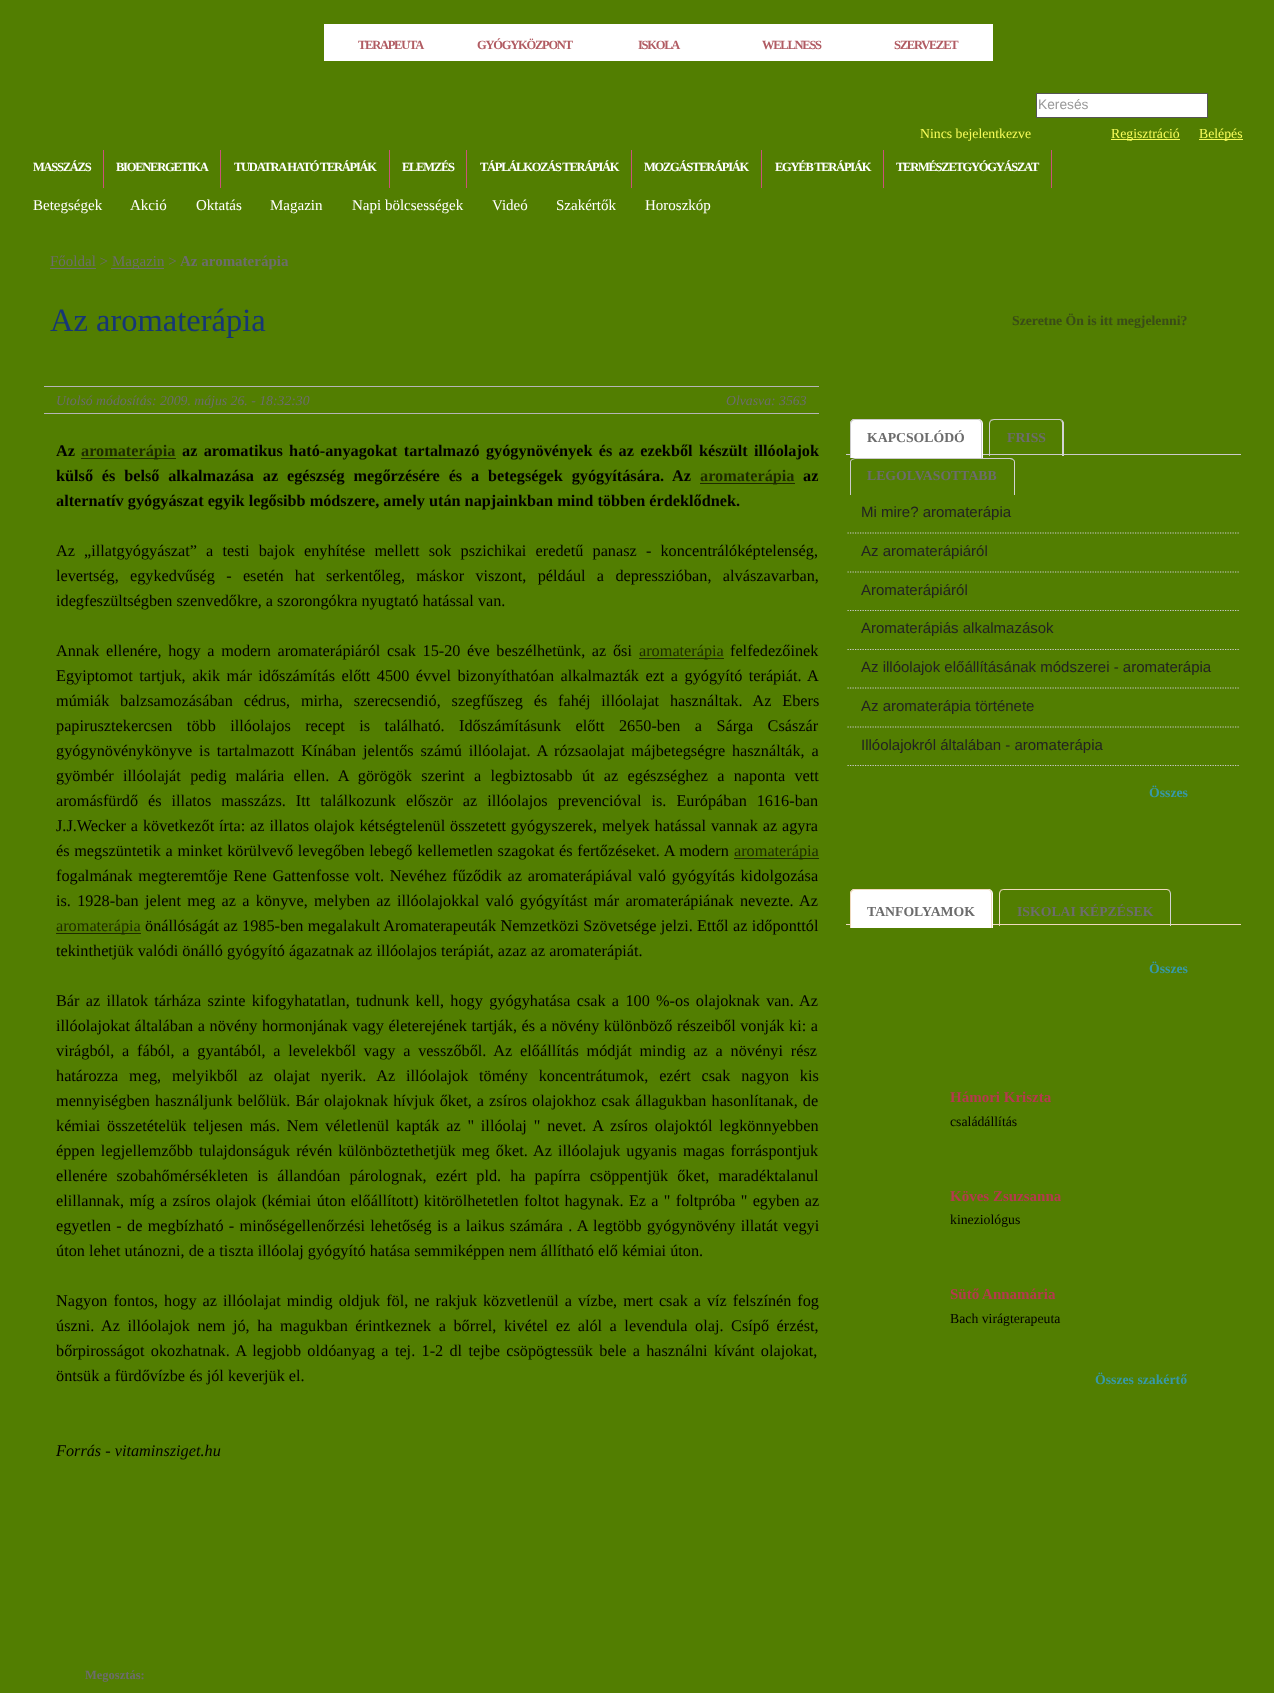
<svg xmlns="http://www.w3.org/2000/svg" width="1274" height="1693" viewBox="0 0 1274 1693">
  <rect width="100%" height="100%" fill="#527e01"/>
  <rect x="324" y="24" width="669" height="37" fill="#ffffff"/>
  <text x="358" y="49" font-family="Liberation Serif" font-size="12.5" font-weight="bold" letter-spacing="-1.25" fill="#b15c63">TERAPEUTA</text>
  <text x="477" y="49" font-family="Liberation Serif" font-size="12.5" font-weight="bold" letter-spacing="-1.25" fill="#b15c63">GYÓGYKÖZPONT</text>
  <text x="638" y="49" font-family="Liberation Serif" font-size="12.5" font-weight="bold" letter-spacing="-1.25" fill="#b15c63">ISKOLA</text>
  <text x="762" y="49" font-family="Liberation Serif" font-size="12.5" font-weight="bold" letter-spacing="-1.25" fill="#b15c63">WELLNESS</text>
  <text x="894" y="49" font-family="Liberation Serif" font-size="12.5" font-weight="bold" letter-spacing="-1.25" fill="#b15c63">SZERVEZET</text>
  <rect x="1036.5" y="93.5" width="171" height="24" fill="#ffffff" stroke="#555555"/>
  <text x="1038" y="109" font-family="Liberation Sans" font-size="13.75" fill="#999999">Keresés</text>
  <text x="920" y="138" font-family="Liberation Serif" font-size="13.75" fill="#f7fc5a">Nincs bejelentkezve</text>
  <rect x="1111" y="139" width="69" height="1" fill="#f7fc5a"/>
  <text x="1111" y="138" font-family="Liberation Serif" font-size="13.75" fill="#f7fc5a">Regisztráció</text>
  <rect x="1199" y="139" width="44" height="1" fill="#f7fc5a"/>
  <text x="1199" y="138" font-family="Liberation Serif" font-size="13.75" fill="#f7fc5a">Belépés</text>
  <rect x="103" y="150" width="1" height="38" fill="#ca537a"/>
  <text x="33" y="171" font-family="Liberation Serif" font-size="12.5" font-weight="bold" letter-spacing="-1.25" fill="#ffffff">MASSZÁZS</text>
  <rect x="220" y="150" width="1" height="38" fill="#ca537a"/>
  <text x="116" y="171" font-family="Liberation Serif" font-size="12.5" font-weight="bold" letter-spacing="-1.25" fill="#ffffff">BIOENERGETIKA</text>
  <rect x="389" y="150" width="1" height="38" fill="#ca537a"/>
  <text x="234" y="171" font-family="Liberation Serif" font-size="12.5" font-weight="bold" letter-spacing="-1.25" fill="#ffffff">TUDATRA HATÓ TERÁPIÁK</text>
  <rect x="466" y="150" width="1" height="38" fill="#ca537a"/>
  <text x="402" y="171" font-family="Liberation Serif" font-size="12.5" font-weight="bold" letter-spacing="-1.25" fill="#ffffff">ELEMZÉS</text>
  <rect x="631" y="150" width="1" height="38" fill="#ca537a"/>
  <text x="480" y="171" font-family="Liberation Serif" font-size="12.5" font-weight="bold" letter-spacing="-1.25" fill="#ffffff">TÁPLÁLKOZÁS TERÁPIÁK</text>
  <rect x="761" y="150" width="1" height="38" fill="#ca537a"/>
  <text x="644" y="171" font-family="Liberation Serif" font-size="12.5" font-weight="bold" letter-spacing="-1.25" fill="#ffffff">MOZGÁSTERÁPIÁK</text>
  <rect x="883" y="150" width="1" height="38" fill="#ca537a"/>
  <text x="775" y="171" font-family="Liberation Serif" font-size="12.5" font-weight="bold" letter-spacing="-1.25" fill="#ffffff">EGYÉB TERÁPIÁK</text>
  <rect x="1051" y="150" width="1" height="38" fill="#ca537a"/>
  <text x="896" y="171" font-family="Liberation Serif" font-size="12.5" font-weight="bold" letter-spacing="-1.25" fill="#ffffff">TERMÉSZETGYÓGYÁSZAT</text>
  <text x="33" y="210" font-family="Liberation Serif" font-size="15" fill="#ffffff">Betegségek</text>
  <text x="130" y="210" font-family="Liberation Serif" font-size="15" fill="#ffffff">Akció</text>
  <text x="196" y="210" font-family="Liberation Serif" font-size="15" fill="#ffffff">Oktatás</text>
  <text x="270" y="210" font-family="Liberation Serif" font-size="15" fill="#ffffff">Magazin</text>
  <text x="352" y="210" font-family="Liberation Serif" font-size="15" fill="#ffffff">Napi bölcsességek</text>
  <text x="492" y="210" font-family="Liberation Serif" font-size="15" fill="#ffffff">Videó</text>
  <text x="556" y="210" font-family="Liberation Serif" font-size="15" fill="#ffffff">Szakértők</text>
  <text x="645" y="210" font-family="Liberation Serif" font-size="15" fill="#ffffff">Horoszkóp</text>
  <text x="50" y="266" font-family="Liberation Serif" font-size="15" fill="#6c6c6c">Főoldal &gt;</text>
  <rect x="50" y="268" width="46" height="1" fill="#6c6c6c"/>
  <rect x="111" y="268" width="53" height="1" fill="#6c6c6c"/>
  <text x="112" y="266" font-family="Liberation Serif" font-size="15" fill="#6c6c6c">Magazin &gt;</text>
  <text x="180" y="266" font-family="Liberation Serif" font-size="15" font-weight="bold" fill="#6c6c6c">Az aromaterápia</text>
  <text x="50" y="331" font-family="Liberation Serif" font-size="32.5" fill="#163677">Az aromaterápia</text>
  <rect x="44" y="386" width="775" height="1" fill="#b5b5b5"/>
  <rect x="44" y="413" width="775" height="1" fill="#b5b5b5"/>
  <text x="56" y="405" font-family="Liberation Serif" font-size="13.75" font-style="italic" fill="#6c6c6c">Utolsó módosítás: 2009. május 26. - 18:32:30</text>
  <text x="726" y="405" font-family="Liberation Serif" font-size="13.75" font-style="italic" fill="#6c6c6c">Olvasva: 3563</text>
  <text x="56" y="456" font-family="Liberation Serif" font-size="16.25" font-weight="bold" fill="#000000">Az</text>
  <rect x="81" y="458" width="95" height="1" fill="#1e2b00"/>
  <text x="81" y="456" font-family="Liberation Serif" font-size="16.25" font-weight="bold" fill="#1e2b00">aromaterápia</text>
  <text x="182" y="456" word-spacing="2.25" font-family="Liberation Serif" font-size="16.25" font-weight="bold" fill="#000000">az aromatikus ható-anyagokat tartalmazó gyógynövények és az ezekből készült illóolajok</text>
  <text x="56" y="481" word-spacing="4.75" font-family="Liberation Serif" font-size="16.25" font-weight="bold" fill="#000000">külső és belső alkalmazása az egészség megőrzésére és a betegségek gyógyítására. Az</text>
  <rect x="700" y="483" width="95" height="1" fill="#1e2b00"/>
  <text x="700" y="481" font-family="Liberation Serif" font-size="16.25" font-weight="bold" fill="#1e2b00">aromaterápia</text>
  <text x="803" y="481" font-family="Liberation Serif" font-size="16.25" font-weight="bold" fill="#000000">az</text>
  <text x="56" y="506" font-family="Liberation Serif" font-size="16.25" font-weight="bold" fill="#000000">alternatív gyógyászat egyik legősibb módszere, amely után napjainkban mind többen érdeklődnek.</text>
  <text x="56" y="556" word-spacing="5.1" font-family="Liberation Serif" font-size="16.25" fill="#000000">Az „illatgyógyászat” a testi bajok enyhítése mellett sok pszichikai eredetű panasz - koncentrálóképtelenség,</text>
  <text x="56" y="581" word-spacing="7.25" font-family="Liberation Serif" font-size="16.25" fill="#000000">levertség, egykedvűség - esetén hat serkentőleg, máskor viszont, például a depresszióban, alvászavarban,</text>
  <text x="56" y="606" font-family="Liberation Serif" font-size="16.25" fill="#000000">idegfeszültségben szenvedőkre, a szorongókra nyugtató hatással van.</text>
  <text x="56" y="656" word-spacing="2.6" font-family="Liberation Serif" font-size="16.25" fill="#000000">Annak ellenére, hogy a modern aromaterápiáról csak 15-20 éve beszélhetünk, az ősi</text>
  <rect x="639" y="658" width="85" height="1" fill="#1e2b00"/>
  <text x="639" y="656" font-family="Liberation Serif" font-size="16.25" fill="#1e2b00">aromaterápia</text>
  <text x="730" y="656" font-family="Liberation Serif" font-size="16.25" fill="#000000">felfedezőinek</text>
  <text x="56" y="681" word-spacing="2.4" font-family="Liberation Serif" font-size="16.25" fill="#000000">Egyiptomot tartjuk, akik már időszámítás előtt 4500 évvel bizonyíthatóan alkalmazták ezt a gyógyító terápiát. A</text>
  <text x="56" y="706" word-spacing="6.75" font-family="Liberation Serif" font-size="16.25" fill="#000000">múmiák balzsamozásában cédrus, mirha, szerecsendió, szegfűszeg és fahéj illóolajat használtak. Az Ebers</text>
  <text x="56" y="731" word-spacing="10.4" font-family="Liberation Serif" font-size="16.25" fill="#000000">papirusztekercsen több illóolajos recept is található. Időszámításunk előtt 2650-ben a Sárga Császár</text>
  <text x="56" y="756" word-spacing="2.75" font-family="Liberation Serif" font-size="16.25" fill="#000000">gyógynövénykönyve is tartalmazott Kínában jelentős számú illóolajat. A rózsaolajat májbetegségre használták, a</text>
  <text x="56" y="781" word-spacing="5.25" font-family="Liberation Serif" font-size="16.25" fill="#000000">gyömbér illóolaját pedig malária ellen. A görögök szerint a legbiztosabb út az egészséghez a naponta vett</text>
  <text x="56" y="806" word-spacing="5.9" font-family="Liberation Serif" font-size="16.25" fill="#000000">aromásfürdő és illatos masszázs. Itt találkozunk először az illóolajos prevencióval is. Európában 1616-ban</text>
  <text x="56" y="831" word-spacing="0.8" font-family="Liberation Serif" font-size="16.25" fill="#000000">J.J.Wecker a következőt írta: az illatos olajok kétségtelenül összetett gyógyszerek, melyek hatással vannak az agyra</text>
  <text x="56" y="856" word-spacing="0.6" font-family="Liberation Serif" font-size="16.25" fill="#000000">és megszüntetik a minket körülvevő levegőben lebegő kellemetlen szagokat és fertőzéseket. A modern</text>
  <rect x="734" y="858" width="85" height="1" fill="#1e2b00"/>
  <text x="734" y="856" font-family="Liberation Serif" font-size="16.25" fill="#1e2b00">aromaterápia</text>
  <text x="56" y="881" word-spacing="1.6" font-family="Liberation Serif" font-size="16.25" fill="#000000">fogalmának megteremtője Rene Gattenfosse volt. Nevéhez fűződik az aromaterápiával való gyógyítás kidolgozása</text>
  <text x="56" y="906" word-spacing="2.25" font-family="Liberation Serif" font-size="16.25" fill="#000000">is. 1928-ban jelent meg az a könyve, melyben az illóolajokkal való gyógyítást már aromaterápiának nevezte. Az</text>
  <rect x="56" y="933" width="85" height="1" fill="#1e2b00"/>
  <text x="56" y="931" font-family="Liberation Serif" font-size="16.25" fill="#1e2b00">aromaterápia</text>
  <text x="145" y="931" word-spacing="0.25" font-family="Liberation Serif" font-size="16.25" fill="#000000">önállóságát az 1985-ben megalakult Aromaterapeuták Nemzetközi Szövetsége jelzi. Ettől az időponttól</text>
  <text x="56" y="956" font-family="Liberation Serif" font-size="16.25" fill="#000000">tekinthetjük valódi önálló gyógyító ágazatnak az illóolajos terápiát, azaz az aromaterápiát.</text>
  <text x="56" y="1006" word-spacing="2.25" font-family="Liberation Serif" font-size="16.25" fill="#000000">Bár az illatok tárháza szinte kifogyhatatlan, tudnunk kell, hogy gyógyhatása csak a 100 %-os olajoknak van. Az</text>
  <text x="56" y="1031" word-spacing="0.5" font-family="Liberation Serif" font-size="16.25" fill="#000000">illóolajokat általában a növény hormonjának vagy életerejének tartják, és a növény különböző részeiből vonják ki: a</text>
  <text x="56" y="1056" word-spacing="3.75" font-family="Liberation Serif" font-size="16.25" fill="#000000">virágból, a fából, a gyantából, a levelekből vagy a vesszőből. Az előállítás módját mindig az a növényi rész</text>
  <text x="56" y="1081" word-spacing="6.75" font-family="Liberation Serif" font-size="16.25" fill="#000000">határozza meg, melyikből az olajat nyerik. Az illóolajok tömény koncentrátumok, ezért csak nagyon kis</text>
  <text x="56" y="1106" word-spacing="1" font-family="Liberation Serif" font-size="16.25" fill="#000000">mennyiségben használjunk belőlük. Bár olajoknak hívjuk őket, a zsíros olajokhoz csak állagukban hasonlítanak, de</text>
  <text x="56" y="1131" word-spacing="2.75" font-family="Liberation Serif" font-size="16.25" fill="#000000">kémiai összetételük teljesen más. Nem véletlenül kapták az " illóolaj " nevet. A zsíros olajoktól legkönnyebben</text>
  <text x="56" y="1156" word-spacing="2" font-family="Liberation Serif" font-size="16.25" fill="#000000">éppen legjellemzőbb tulajdonságuk révén különböztethetjük meg őket. Az illóolajuk ugyanis magas forráspontjuk</text>
  <text x="56" y="1181" word-spacing="5" font-family="Liberation Serif" font-size="16.25" fill="#000000">ellenére szobahőmérsékleten is állandóan párolognak, ezért pld. ha papírra csöppentjük őket, maradéktalanul</text>
  <text x="56" y="1206" word-spacing="1.25" font-family="Liberation Serif" font-size="16.25" fill="#000000">elillannak, míg a zsíros olajok (kémiai úton előállított) kitörölhetetlen foltot hagynak. Ez a " foltpróba " egyben az</text>
  <text x="56" y="1231" word-spacing="1.25" font-family="Liberation Serif" font-size="16.25" fill="#000000">egyetlen - de megbízható - minőségellenőrzési lehetőség is a laikus számára . A legtöbb gyógynövény illatát vegyi</text>
  <text x="56" y="1256" font-family="Liberation Serif" font-size="16.25" fill="#000000">úton lehet utánozni, de a tiszta illóolaj gyógyító hatása semmiképpen nem állítható elő kémiai úton.</text>
  <text x="56" y="1306" word-spacing="1.9" font-family="Liberation Serif" font-size="16.25" fill="#000000">Nagyon fontos, hogy az illóolajat mindig oldjuk föl, ne rakjuk közvetlenül a vízbe, mert csak a víz felszínén fog</text>
  <text x="56" y="1331" word-spacing="3.5" font-family="Liberation Serif" font-size="16.25" fill="#000000">úszni. Az illóolajok nem jó, ha magukban érintkeznek a bőrrel, kivétel ez alól a levendula olaj. Csípő érzést,</text>
  <text x="56" y="1356" word-spacing="2.25" font-family="Liberation Serif" font-size="16.25" fill="#000000">bőrpirosságot okozhatnak. A legjobb oldóanyag a tej. 1-2 dl tejbe csöpögtessük bele a használni kívánt olajokat,</text>
  <text x="56" y="1381" font-family="Liberation Serif" font-size="16.25" fill="#000000">öntsük a fürdővízbe és jól keverjük el.</text>
  <text x="56" y="1456" font-family="Liberation Serif" font-size="16.25" font-style="italic" fill="#000000">Forrás - vitaminsziget.hu</text>
  <text x="85" y="1679" font-family="Liberation Serif" font-size="12.5" font-weight="bold" fill="#6c6c6c">Megosztás:</text>
  <text x="1012" y="325" font-family="Liberation Serif" font-size="13.75" font-weight="bold" fill="#394b17">Szeretne Ön is itt megjelenni?</text>
  <rect x="846" y="454" width="395" height="1" fill="#cccbcb"/>
  <path d="M855 419H978C981 419 983 421 983 424V458H850V424C850 421 852 419 855 419Z" fill="#ffffff"/>
  <path d="M855 419H978C980 419 982 421 982 424V458H850V424C850 421 852 419 855 419ZM855 420H978C980 420 981 422 981 424V458H851V424C851 422 853 420 855 420Z" fill="#cccbcb" fill-rule="evenodd"/>
  <text x="867" y="442" font-family="Liberation Serif" font-size="13.75" font-weight="bold" fill="#6c6c6c">KAPCSOLÓDÓ</text>
  <path d="M994 419H1059C1060 419 1062 419 1062 420L1061 421L1060 420H994L991 421L990 420C991 420 992 419 994 419Z" fill="#cccbcb"/>
  <path d="M1062.5 420L1064 422.5V456H1062V424C1062 423 1062 422 1061 421Z" fill="#d3d3d3"/>
  <path d="M990.5 420.5L991 421C990.5 422 990 423 990 424V456H989V424C989 422.5 989.5 421 990.5 420.5Z" fill="#cccbcb"/>
  <text x="1007" y="442" font-family="Liberation Serif" font-size="13.75" font-weight="bold" fill="#6c6c6c">FRISS</text>
  <path d="M855 458H1010C1011 458 1013 458 1013 459V460L1010 459H855L852 460V459Z" fill="#cccbcb"/>
  <path d="M1015 495V462C1015 461 1014.5 460 1013.5 459L1013 460L1014 461.5V495Z" fill="#d3d3d3"/>
  <path d="M850 495H851V461.5L852 460L851.5 459C850.5 460 850 461 850 462Z" fill="#cccbcb"/>
  <text x="867" y="480" font-family="Liberation Serif" font-size="13.75" font-weight="bold" fill="#6c6c6c">LEGOLVASOTTABB</text>
  <path d="M847.5 533H1239" fill="none" stroke="#cbcbcb" stroke-width="1.2" stroke-dasharray="1.25 1.25"/>
  <text x="861" y="517" font-family="Liberation Sans" font-size="15" fill="#222222">Mi mire? aromaterápia</text>
  <path d="M847.5 572H1239" fill="none" stroke="#cbcbcb" stroke-width="1.2" stroke-dasharray="1.25 1.25"/>
  <text x="861" y="556" font-family="Liberation Sans" font-size="15" fill="#222222">Az aromaterápiáról</text>
  <path d="M847.5 610.5H1239" fill="none" stroke="#cbcbcb" stroke-width="1.2" stroke-dasharray="1.25 1.25"/>
  <text x="861" y="595" font-family="Liberation Sans" font-size="15" fill="#222222">Aromaterápiáról</text>
  <path d="M847.5 649.5H1239" fill="none" stroke="#cbcbcb" stroke-width="1.2" stroke-dasharray="1.25 1.25"/>
  <text x="861" y="633" font-family="Liberation Sans" font-size="15" fill="#222222">Aromaterápiás alkalmazások</text>
  <path d="M847.5 688H1239" fill="none" stroke="#cbcbcb" stroke-width="1.2" stroke-dasharray="1.25 1.25"/>
  <text x="861" y="672" font-family="Liberation Sans" font-size="15" fill="#222222">Az illóolajok előállításának módszerei - aromaterápia</text>
  <path d="M847.5 727H1239" fill="none" stroke="#cbcbcb" stroke-width="1.2" stroke-dasharray="1.25 1.25"/>
  <text x="861" y="711" font-family="Liberation Sans" font-size="15" fill="#222222">Az aromaterápia története</text>
  <path d="M847.5 765.5H1239" fill="none" stroke="#cbcbcb" stroke-width="1.2" stroke-dasharray="1.25 1.25"/>
  <text x="861" y="750" font-family="Liberation Sans" font-size="15" fill="#222222">Illóolajokról általában - aromaterápia</text>
  <text x="1149" y="797" font-family="Liberation Serif" font-size="13.75" font-weight="bold" fill="#3799a9">Összes</text>
  <rect x="846" y="924" width="395" height="1" fill="#efd9be"/>
  <path d="M855 889H988C991 889 993 891 993 894V928H850V894C850 891 852 889 855 889Z" fill="#ffffff"/>
  <path d="M855 889H988C990 889 992 891 992 894V928H850V894C850 891 852 889 855 889ZM855 890H988C990 890 991 892 991 894V928H851V894C851 892 853 890 855 890Z" fill="#efd9be" fill-rule="evenodd"/>
  <text x="867" y="916" font-family="Liberation Serif" font-size="13.75" font-weight="bold" fill="#6c6c6c">TANFOLYAMOK</text>
  <path d="M1004 889H1167L1170 890L1169 891C1168 890 1167 890 1166 890H1004C1003 890 1002 890 1001 891L1000 890C1001 890 1002 889 1004 889Z" fill="#efd9be"/>
  <path d="M1169 891C1169.5 892 1170 893 1170 894V926H1171V894C1171 892.5 1170.5 891 1169.5 890.5Z" fill="#d3d3d3"/>
  <path d="M1000.5 890.5L1001 891C1000.5 892 1000 893 1000 894V926H999V894C999 892.5 999.5 891 1000.5 890.5Z" fill="#efd9be"/>
  <text x="1017" y="916" font-family="Liberation Serif" font-size="13.75" font-weight="bold" fill="#6c6c6c">ISKOLAI KÉPZÉSEK</text>
  <text x="1149" y="973" font-family="Liberation Serif" font-size="13.75" font-weight="bold" fill="#3799a9">Összes</text>
  <text x="950" y="1102" font-family="Liberation Serif" font-size="15" font-weight="bold" fill="#b5394e">Hámori Kriszta</text>
  <text x="950" y="1126" font-family="Liberation Serif" font-size="13.75" fill="#000000">családállítás</text>
  <text x="950" y="1201" font-family="Liberation Serif" font-size="15" font-weight="bold" fill="#b5394e">Köves Zsuzsanna</text>
  <text x="950" y="1224" font-family="Liberation Serif" font-size="13.75" fill="#000000">kineziológus</text>
  <text x="950" y="1299" font-family="Liberation Serif" font-size="15" font-weight="bold" fill="#b5394e">Sütő Annamária</text>
  <text x="950" y="1323" font-family="Liberation Serif" font-size="13.75" fill="#000000">Bach virágterapeuta</text>
  <text x="1095" y="1384" font-family="Liberation Serif" font-size="13.75" font-weight="bold" fill="#3799a9">Összes szakértő</text>
</svg>
